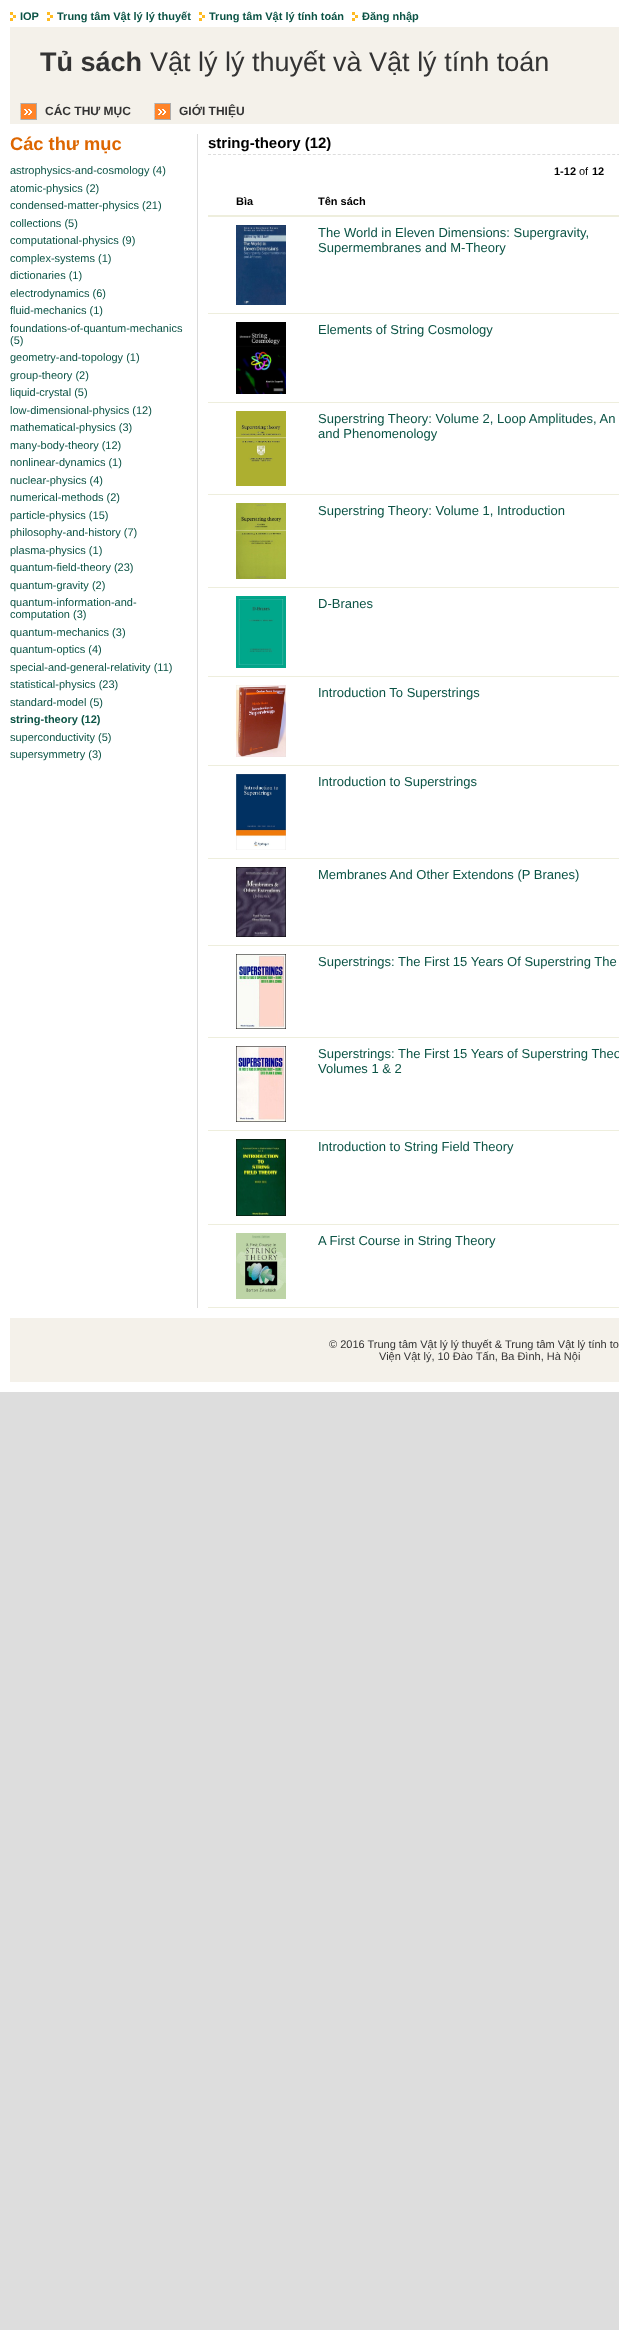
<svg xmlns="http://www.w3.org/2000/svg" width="619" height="2330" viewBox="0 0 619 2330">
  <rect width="100%" height="100%" fill="#dddddd"/>
  <rect x="0" y="0" width="619" height="1392" fill="#ffffff"/>
  <image x="10" y="12" width="6" height="9" href="img1.png"/>
  <text x="20" y="20" font-family="Liberation Sans" font-size="11" font-weight="bold" fill="#0b5345">IOP</text>
  <image x="47" y="12" width="6" height="9" href="img1.png"/>
  <text x="57" y="20" font-family="Liberation Sans" font-size="11" font-weight="bold" fill="#0b5345">Trung tâm Vật lý lý thuyết</text>
  <image x="199" y="12" width="6" height="9" href="img1.png"/>
  <text x="209" y="20" font-family="Liberation Sans" font-size="11" font-weight="bold" fill="#0b5345">Trung tâm Vật lý tính toán</text>
  <image x="352" y="12" width="6" height="9" href="img1.png"/>
  <text x="362" y="20" font-family="Liberation Sans" font-size="11" font-weight="bold" fill="#0b5345">Đăng nhập</text>
  <rect x="10" y="27" width="609" height="97" fill="#f4f1ea"/>
  <text x="40" y="71" font-family="Liberation Sans" font-size="27" font-weight="bold" fill="#333333">Tủ sách</text>
  <text x="150" y="71" font-family="Liberation Sans" font-size="27" fill="#333333">Vật lý lý thuyết và Vật lý tính toán</text>
  <image x="20" y="103" width="17" height="17" href="img2.png"/>
  <text x="45" y="115" font-family="Liberation Sans" font-size="12" font-weight="bold" fill="#333333">CÁC THƯ MỤC</text>
  <image x="154" y="103" width="17" height="17" href="img2.png"/>
  <text x="179" y="115" font-family="Liberation Sans" font-size="12" font-weight="bold" fill="#333333">GIỚI THIỆU</text>
  <rect x="197" y="134" width="1" height="1174" fill="#dddddd"/>
  <text x="10" y="150" font-family="Liberation Sans" font-size="18.25" font-weight="bold" fill="#dd6600">Các thư mục</text>
  <text x="10" y="174" font-family="Liberation Sans" font-size="11" fill="#0b5345">astrophysics-and-cosmology (4)</text>
  <text x="10" y="192" font-family="Liberation Sans" font-size="11" fill="#0b5345">atomic-physics (2)</text>
  <text x="10" y="209" font-family="Liberation Sans" font-size="11" fill="#0b5345">condensed-matter-physics (21)</text>
  <text x="10" y="227" font-family="Liberation Sans" font-size="11" fill="#0b5345">collections (5)</text>
  <text x="10" y="244" font-family="Liberation Sans" font-size="11" fill="#0b5345">computational-physics (9)</text>
  <text x="10" y="262" font-family="Liberation Sans" font-size="11" fill="#0b5345">complex-systems (1)</text>
  <text x="10" y="279" font-family="Liberation Sans" font-size="11" fill="#0b5345">dictionaries (1)</text>
  <text x="10" y="297" font-family="Liberation Sans" font-size="11" fill="#0b5345">electrodynamics (6)</text>
  <text x="10" y="314" font-family="Liberation Sans" font-size="11" fill="#0b5345">fluid-mechanics (1)</text>
  <text x="10" y="332" font-family="Liberation Sans" font-size="11" fill="#0b5345">foundations-of-quantum-mechanics</text>
  <text x="10" y="344" font-family="Liberation Sans" font-size="11" fill="#0b5345">(5)</text>
  <text x="10" y="361" font-family="Liberation Sans" font-size="11" fill="#0b5345">geometry-and-topology (1)</text>
  <text x="10" y="379" font-family="Liberation Sans" font-size="11" fill="#0b5345">group-theory (2)</text>
  <text x="10" y="396" font-family="Liberation Sans" font-size="11" fill="#0b5345">liquid-crystal (5)</text>
  <text x="10" y="414" font-family="Liberation Sans" font-size="11" fill="#0b5345">low-dimensional-physics (12)</text>
  <text x="10" y="431" font-family="Liberation Sans" font-size="11" fill="#0b5345">mathematical-physics (3)</text>
  <text x="10" y="449" font-family="Liberation Sans" font-size="11" fill="#0b5345">many-body-theory (12)</text>
  <text x="10" y="466" font-family="Liberation Sans" font-size="11" fill="#0b5345">nonlinear-dynamics (1)</text>
  <text x="10" y="484" font-family="Liberation Sans" font-size="11" fill="#0b5345">nuclear-physics (4)</text>
  <text x="10" y="501" font-family="Liberation Sans" font-size="11" fill="#0b5345">numerical-methods (2)</text>
  <text x="10" y="519" font-family="Liberation Sans" font-size="11" fill="#0b5345">particle-physics (15)</text>
  <text x="10" y="536" font-family="Liberation Sans" font-size="11" fill="#0b5345">philosophy-and-history (7)</text>
  <text x="10" y="554" font-family="Liberation Sans" font-size="11" fill="#0b5345">plasma-physics (1)</text>
  <text x="10" y="571" font-family="Liberation Sans" font-size="11" fill="#0b5345">quantum-field-theory (23)</text>
  <text x="10" y="589" font-family="Liberation Sans" font-size="11" fill="#0b5345">quantum-gravity (2)</text>
  <text x="10" y="606" font-family="Liberation Sans" font-size="11" fill="#0b5345">quantum-information-and-</text>
  <text x="10" y="618" font-family="Liberation Sans" font-size="11" fill="#0b5345">computation (3)</text>
  <text x="10" y="636" font-family="Liberation Sans" font-size="11" fill="#0b5345">quantum-mechanics (3)</text>
  <text x="10" y="653" font-family="Liberation Sans" font-size="11" fill="#0b5345">quantum-optics (4)</text>
  <text x="10" y="671" font-family="Liberation Sans" font-size="11" fill="#0b5345">special-and-general-relativity (11)</text>
  <text x="10" y="688" font-family="Liberation Sans" font-size="11" fill="#0b5345">statistical-physics (23)</text>
  <text x="10" y="706" font-family="Liberation Sans" font-size="11" fill="#0b5345">standard-model (5)</text>
  <text x="10" y="723" font-family="Liberation Sans" font-size="11" font-weight="bold" fill="#0b5345">string-theory (12)</text>
  <text x="10" y="741" font-family="Liberation Sans" font-size="11" fill="#0b5345">superconductivity (5)</text>
  <text x="10" y="758" font-family="Liberation Sans" font-size="11" fill="#0b5345">supersymmetry (3)</text>
  <path d="M208 154.5H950" fill="none" stroke="#dddddd" stroke-dasharray="3 1.99"/>
  <text x="208" y="148" font-family="Liberation Sans" font-size="15" font-weight="bold" fill="#000000">string-theory (12)</text>
  <text x="554" y="175" font-family="Liberation Sans" font-size="11" font-weight="bold" fill="#000000">1-12</text>
  <text x="579" y="175" font-family="Liberation Sans" font-size="11" fill="#000000">of</text>
  <text x="592" y="175" font-family="Liberation Sans" font-size="11" font-weight="bold" fill="#000000">12</text>
  <text x="236" y="205" font-family="Liberation Sans" font-size="11" font-weight="bold" fill="#000000">Bìa</text>
  <text x="318" y="205" font-family="Liberation Sans" font-size="11" font-weight="bold" fill="#000000">Tên sách</text>
  <rect x="208" y="215" width="411" height="2" fill="#eeeedd"/>
  <image x="236" y="225" width="50" height="80" href="img3.png"/>
  <text x="318" y="237" font-family="Liberation Sans" font-size="13" fill="#0b5345">The World in Eleven Dimensions: Supergravity,</text>
  <text x="318" y="252" font-family="Liberation Sans" font-size="13" fill="#0b5345">Supermembranes and M-Theory</text>
  <rect x="208" y="313" width="411" height="1" fill="#eeeedd"/>
  <image x="236" y="322" width="50" height="72" href="img4.png"/>
  <text x="318" y="334" font-family="Liberation Sans" font-size="13" fill="#0b5345">Elements of String Cosmology</text>
  <rect x="208" y="402" width="411" height="1" fill="#eeeedd"/>
  <image x="236" y="411" width="50" height="75" href="img5.png"/>
  <text x="318" y="423" font-family="Liberation Sans" font-size="13" fill="#0b5345">Superstring Theory: Volume 2, Loop Amplitudes, An</text>
  <text x="318" y="438" font-family="Liberation Sans" font-size="13" fill="#0b5345">and Phenomenology</text>
  <rect x="208" y="494" width="411" height="1" fill="#eeeedd"/>
  <image x="236" y="503" width="50" height="76" href="img6.png"/>
  <text x="318" y="515" font-family="Liberation Sans" font-size="13" fill="#0b5345">Superstring Theory: Volume 1, Introduction</text>
  <rect x="208" y="587" width="411" height="1" fill="#eeeedd"/>
  <image x="236" y="596" width="50" height="72" href="img7.png"/>
  <text x="318" y="608" font-family="Liberation Sans" font-size="13" fill="#0b5345">D-Branes</text>
  <rect x="208" y="676" width="411" height="1" fill="#eeeedd"/>
  <image x="236" y="685" width="50" height="72" href="img8.png"/>
  <text x="318" y="697" font-family="Liberation Sans" font-size="13" fill="#0b5345">Introduction To Superstrings</text>
  <rect x="208" y="765" width="411" height="1" fill="#eeeedd"/>
  <image x="236" y="774" width="50" height="76" href="img9.png"/>
  <text x="318" y="786" font-family="Liberation Sans" font-size="13" fill="#0b5345">Introduction to Superstrings</text>
  <rect x="208" y="858" width="411" height="1" fill="#eeeedd"/>
  <image x="236" y="867" width="50" height="70" href="img10.png"/>
  <text x="318" y="879" font-family="Liberation Sans" font-size="13" fill="#0b5345">Membranes And Other Extendons (P Branes)</text>
  <rect x="208" y="945" width="411" height="1" fill="#eeeedd"/>
  <image x="236" y="954" width="50" height="75" href="img11.png"/>
  <text x="318" y="966" font-family="Liberation Sans" font-size="13" fill="#0b5345">Superstrings: The First 15 Years Of Superstring The</text>
  <rect x="208" y="1037" width="411" height="1" fill="#eeeedd"/>
  <image x="236" y="1046" width="50" height="76" href="img12.png"/>
  <text x="318" y="1058" font-family="Liberation Sans" font-size="13" fill="#0b5345">Superstrings: The First 15 Years of Superstring Theo</text>
  <text x="318" y="1073" font-family="Liberation Sans" font-size="13" fill="#0b5345">Volumes 1 &amp; 2</text>
  <rect x="208" y="1130" width="411" height="1" fill="#eeeedd"/>
  <image x="236" y="1139" width="50" height="77" href="img13.png"/>
  <text x="318" y="1151" font-family="Liberation Sans" font-size="13" fill="#0b5345">Introduction to String Field Theory</text>
  <rect x="208" y="1224" width="411" height="1" fill="#eeeedd"/>
  <image x="236" y="1233" width="50" height="66" href="img14.png"/>
  <text x="318" y="1245" font-family="Liberation Sans" font-size="13" fill="#0b5345">A First Course in String Theory</text>
  <rect x="208" y="1307" width="411" height="1" fill="#eeeedd"/>
  <rect x="10" y="1318" width="609" height="64" fill="#f4f1ea"/>
  <text x="329" y="1348" font-family="Liberation Sans" font-size="11" fill="#333333">© 2016 Trung tâm Vật lý lý thuyết &amp; Trung tâm Vật lý tính to</text>
  <text x="379" y="1360" font-family="Liberation Sans" font-size="11" fill="#333333">Viện Vật lý, 10 Đào Tấn, Ba Đình, Hà Nội</text>
</svg>
